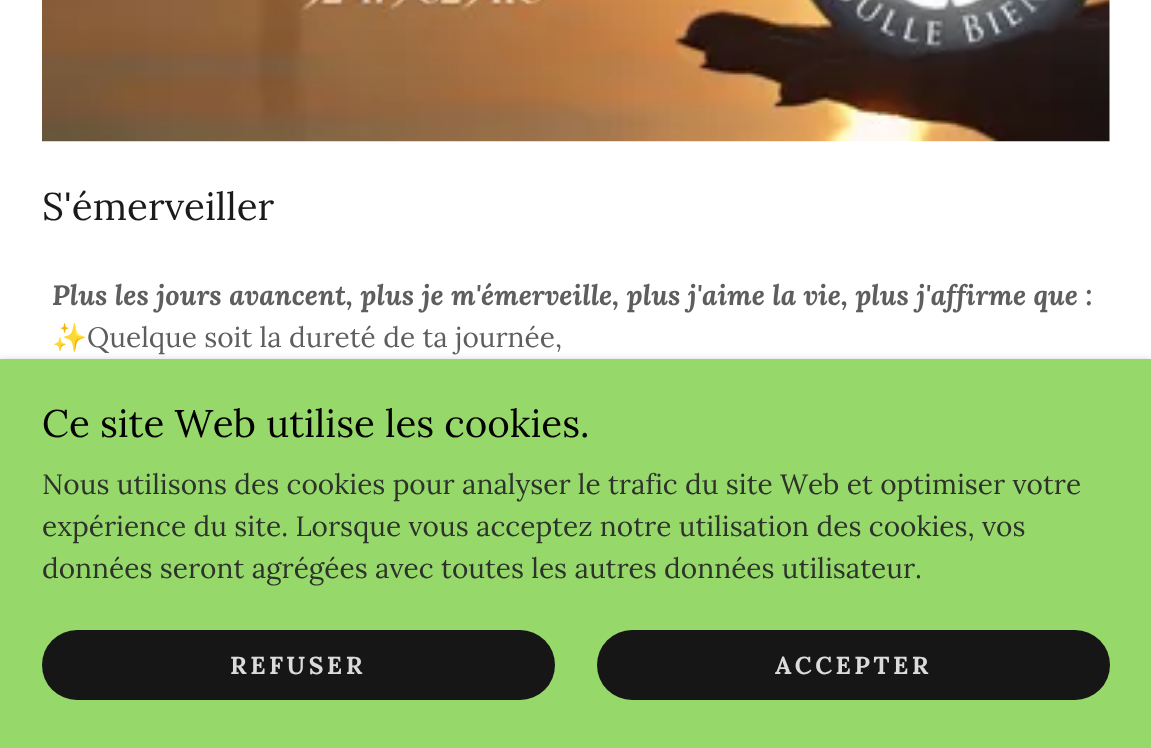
<svg xmlns="http://www.w3.org/2000/svg" width="1151" height="748" viewBox="0 0 1151 748">
  <style>*{font-kerning:none!important;font-variant-ligatures:none!important}</style>
  <defs>
    <filter id="blur1" x="-50%" y="-200%" width="200%" height="500%"><feGaussianBlur stdDeviation="5"/></filter>
  </defs>
  <rect width="100%" height="100%" fill="#ffffff"/>
  <image x="42" y="0" width="1068" height="142" href="img1.png"/>
  <text x="42" y="220" font-family="Lora" font-size="38.5" fill="#1b1b1b">S'émerveiller</text>
  <text x="52" y="305" font-family="Lora" font-size="28" font-weight="bold" font-style="italic" fill="#5e5e5e">Plus les jours avancent, plus je m'émerveille, plus j'aime la vie, plus j'affirme que :</text>
  <text x="52" y="347" font-family="Noto Color Emoji" font-size="28" fill="#5e5e5e">✨</text>
  <text x="87" y="347" font-family="Lora" font-size="28" fill="#5e5e5e">Quelque soit la dureté de ta journée,</text>
  <rect x="0" y="362" width="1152" height="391" fill="#000000" fill-opacity="0.3" filter="url(#blur1)"/>
  <rect x="0" y="359" width="1151" height="389" fill="#96d96a"/>
  <text x="42" y="437" font-family="Lora" font-size="38.5" fill="#000000">Ce site Web utilise les cookies.</text>
  <text x="42" y="494" font-family="Lora" font-size="28" fill="#2d322b">Nous utilisons des cookies pour analyser le trafic du site Web et optimiser votre</text>
  <text x="42" y="536" font-family="Lora" font-size="28" fill="#2d322b">expérience du site. Lorsque vous acceptez notre utilisation des cookies, vos</text>
  <text x="42" y="578" font-family="Lora" font-size="28" fill="#2d322b">données seront agrégées avec toutes les autres données utilisateur.</text>
  <rect x="42" y="630" width="513" height="70" rx="35" fill="#161616"/>
  <text x="230" y="674" font-family="Lora" font-size="24.5" font-weight="bold" letter-spacing="3.5" fill="#dbdbdb">REFUSER</text>
  <rect x="597" y="630" width="513" height="70" rx="35" fill="#161616"/>
  <text x="775" y="674" font-family="Lora" font-size="24.5" font-weight="bold" letter-spacing="3.5" fill="#dbdbdb">ACCEPTER</text>
</svg>
